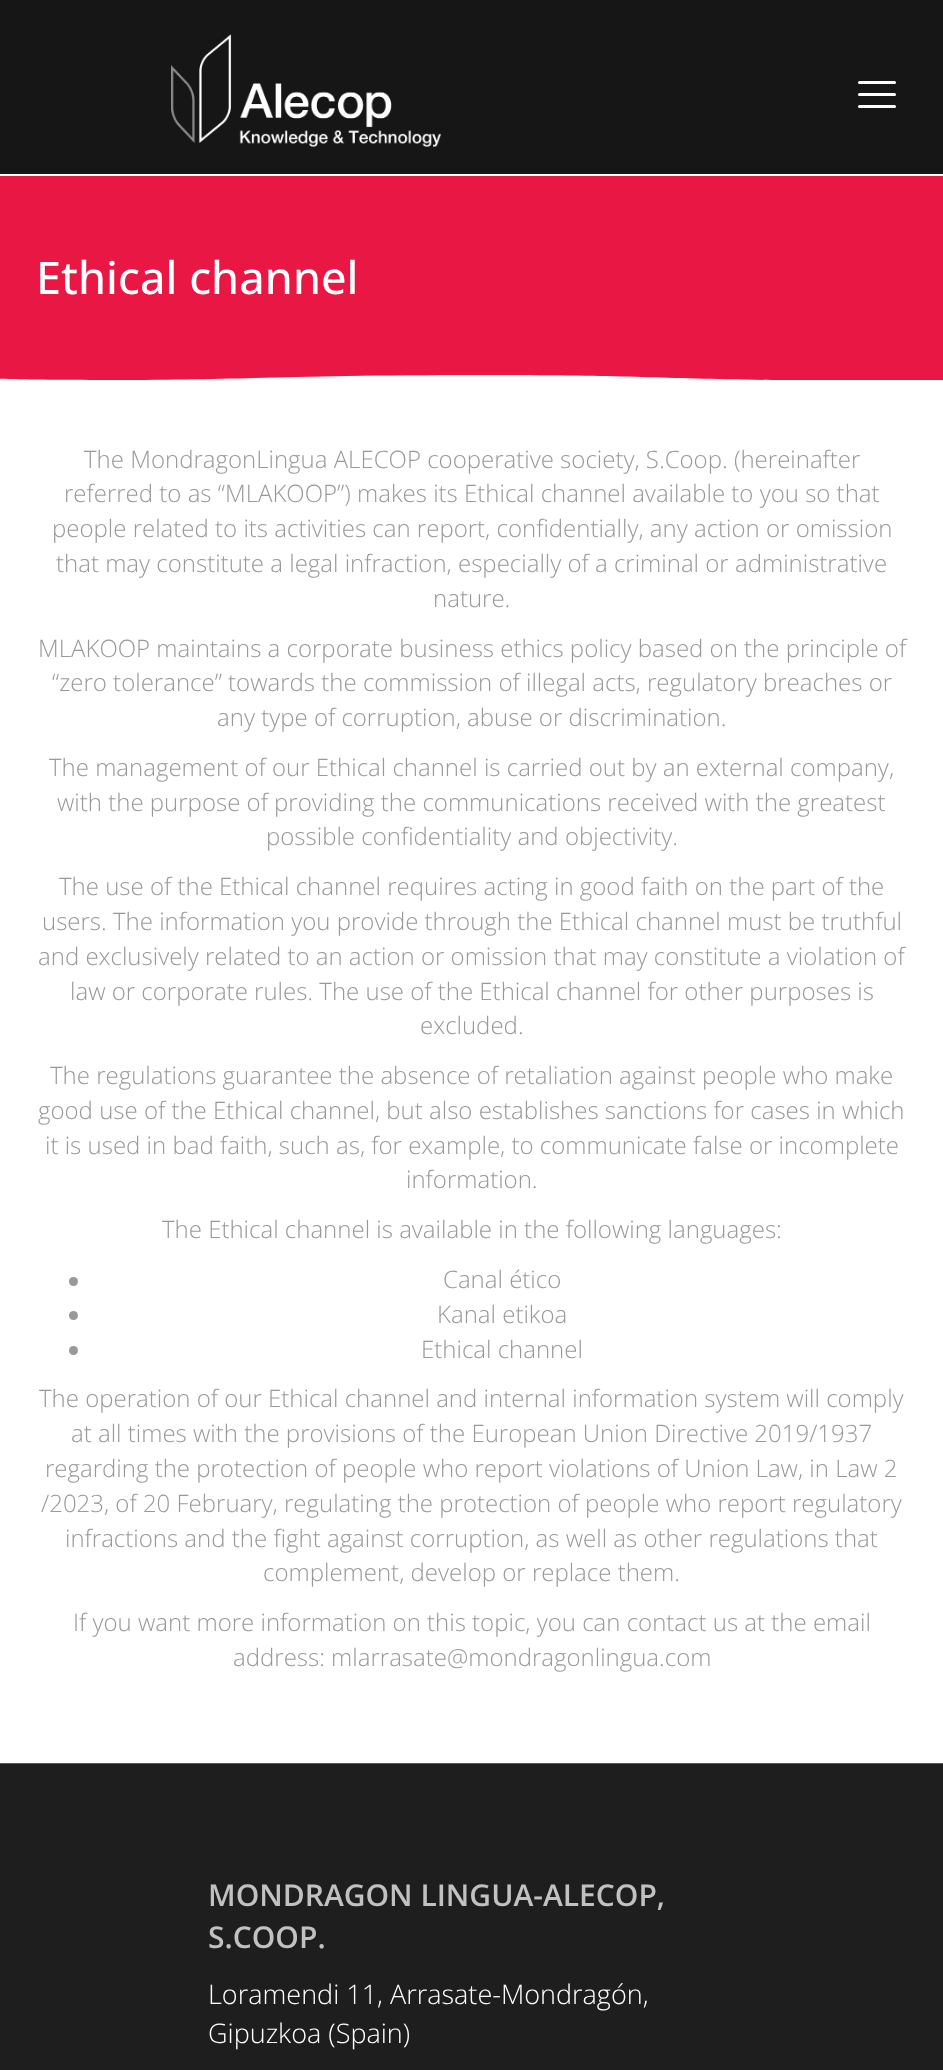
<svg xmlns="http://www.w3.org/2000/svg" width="943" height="2070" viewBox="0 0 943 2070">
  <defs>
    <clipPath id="clip1"><rect x="0" y="371" width="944" height="9"/></clipPath>
  </defs>
  <rect width="100%" height="100%" fill="#ffffff"/>
  <rect x="0" y="0" width="943" height="174" fill="#161616"/>
  <image x="171" y="34" width="270" height="113" href="img1.png"/>
  <rect x="858" y="93" width="38" height="3" rx="1.5" fill="#ffffff"/>
  <rect x="858" y="81" width="38" height="3" rx="1.5" fill="#ffffff"/>
  <rect x="858" y="105" width="38" height="3" rx="1.5" fill="#ffffff"/>
  <rect x="0" y="176" width="943" height="204" fill="#e91744"/>
  <text x="36" y="294" font-family="Open Sans" font-size="45" font-weight="500" fill="#ffffff">Ethical channel</text>
  <g clip-path="url(#clip1)">
    <path d="M-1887 381H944C650 381 682 375 482 375C283 375 251 380 98 380C-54 380-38 374-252 376C-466 378-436 372-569 372C-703 372-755 376-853 376C-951 376-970 374-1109 374C-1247 375-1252 379-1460 378C-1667 377-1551 381-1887 381Z" fill="#ffffff"/>
  </g>
  <rect x="0" y="1763" width="943" height="1" fill="#e91744"/>
  <text x="84" y="468" font-family="Open Sans" font-size="24" font-weight="300" fill="#999999">The MondragonLingua ALECOP cooperative society, S.Coop. (hereinafter</text>
  <text x="64" y="502" font-family="Open Sans" font-size="24" font-weight="300" fill="#999999">referred to as “MLAKOOP”) makes its Ethical channel available to you so that</text>
  <text x="52" y="537" font-family="Open Sans" font-size="24" font-weight="300" fill="#999999">people related to its activities can report, confidentially, any action or omission</text>
  <text x="56" y="572" font-family="Open Sans" font-size="24" font-weight="300" fill="#999999">that may constitute a legal infraction, especially of a criminal or administrative</text>
  <text x="433" y="607" font-family="Open Sans" font-size="24" font-weight="300" fill="#999999">nature.</text>
  <text x="38" y="657" font-family="Open Sans" font-size="24" font-weight="300" fill="#999999">MLAKOOP maintains a corporate business ethics policy based on the principle of</text>
  <text x="52" y="691" font-family="Open Sans" font-size="24" font-weight="300" fill="#999999">“zero tolerance” towards the commission of illegal acts, regulatory breaches or</text>
  <text x="217" y="726" font-family="Open Sans" font-size="24" font-weight="300" fill="#999999">any type of corruption, abuse or discrimination.</text>
  <text x="49" y="776" font-family="Open Sans" font-size="24" font-weight="300" fill="#999999">The management of our Ethical channel is carried out by an external company,</text>
  <text x="57" y="811" font-family="Open Sans" font-size="24" font-weight="300" fill="#999999">with the purpose of providing the communications received with the greatest</text>
  <text x="266" y="845" font-family="Open Sans" font-size="24" font-weight="300" fill="#999999">possible confidentiality and objectivity.</text>
  <text x="59" y="895" font-family="Open Sans" font-size="24" font-weight="300" fill="#999999">The use of the Ethical channel requires acting in good faith on the part of the</text>
  <text x="42" y="930" font-family="Open Sans" font-size="24" font-weight="300" fill="#999999">users. The information you provide through the Ethical channel must be truthful</text>
  <text x="38" y="965" font-family="Open Sans" font-size="24" font-weight="300" fill="#999999">and exclusively related to an action or omission that may constitute a violation of</text>
  <text x="70" y="1000" font-family="Open Sans" font-size="24" font-weight="300" fill="#999999">law or corporate rules. The use of the Ethical channel for other purposes is</text>
  <text x="420" y="1034" font-family="Open Sans" font-size="24" font-weight="300" fill="#999999">excluded.</text>
  <text x="50" y="1084" font-family="Open Sans" font-size="24" font-weight="300" fill="#999999">The regulations guarantee the absence of retaliation against people who make</text>
  <text x="38" y="1119" font-family="Open Sans" font-size="24" font-weight="300" fill="#999999">good use of the Ethical channel, but also establishes sanctions for cases in which</text>
  <text x="45" y="1154" font-family="Open Sans" font-size="24" font-weight="300" fill="#999999">it is used in bad faith, such as, for example, to communicate false or incomplete</text>
  <text x="406" y="1188" font-family="Open Sans" font-size="24" font-weight="300" fill="#999999">information.</text>
  <text x="162" y="1238" font-family="Open Sans" font-size="24" font-weight="300" fill="#999999">The Ethical channel is available in the following languages:</text>
  <circle cx="73.5" cy="1281.5" r="4.5" fill="#999999"/>
  <text x="443" y="1288" font-family="Open Sans" font-size="24" font-weight="300" fill="#999999">Canal ético</text>
  <circle cx="73.5" cy="1315.5" r="4.5" fill="#999999"/>
  <text x="437" y="1323" font-family="Open Sans" font-size="24" font-weight="300" fill="#999999">Kanal etikoa</text>
  <circle cx="73.5" cy="1350.5" r="4.5" fill="#999999"/>
  <text x="421" y="1358" font-family="Open Sans" font-size="24" font-weight="300" fill="#999999">Ethical channel</text>
  <text x="39" y="1407" font-family="Open Sans" font-size="24" font-weight="300" fill="#999999">The operation of our Ethical channel and internal information system will comply</text>
  <text x="71" y="1442" font-family="Open Sans" font-size="24" font-weight="300" fill="#999999">at all times with the provisions of the European Union Directive 2019/1937</text>
  <text x="45" y="1477" font-family="Open Sans" font-size="24" font-weight="300" fill="#999999">regarding the protection of people who report violations of Union Law, in Law 2</text>
  <text x="41" y="1512" font-family="Open Sans" font-size="24" font-weight="300" fill="#999999">/2023, of 20 February, regulating the protection of people who report regulatory</text>
  <text x="65" y="1547" font-family="Open Sans" font-size="24" font-weight="300" fill="#999999">infractions and the fight against corruption, as well as other regulations that</text>
  <text x="263" y="1581" font-family="Open Sans" font-size="24" font-weight="300" fill="#999999">complement, develop or replace them.</text>
  <text x="73" y="1631" font-family="Open Sans" font-size="24" font-weight="300" fill="#999999">If you want more information on this topic, you can contact us at the email</text>
  <text x="233" y="1666" font-family="Open Sans" font-size="24" font-weight="300" fill="#999999">address: mlarrasate@mondragonlingua.com</text>
  <rect x="0" y="1764" width="943" height="306" fill="#1e1e1e"/>
  <text x="208" y="1906" font-family="Open Sans" font-size="30" font-weight="600" fill="#c1c1c1">MONDRAGON LINGUA-ALECOP,</text>
  <text x="208" y="1948" font-family="Open Sans" font-size="30" font-weight="600" fill="#c1c1c1">S.COOP.</text>
  <text x="208" y="2004" font-family="Open Sans" font-size="27" font-weight="300" fill="#ffffff">Loramendi 11, Arrasate-Mondragón,</text>
  <text x="208" y="2043" font-family="Open Sans" font-size="27" font-weight="300" fill="#ffffff">Gipuzkoa (Spain)</text>
</svg>
